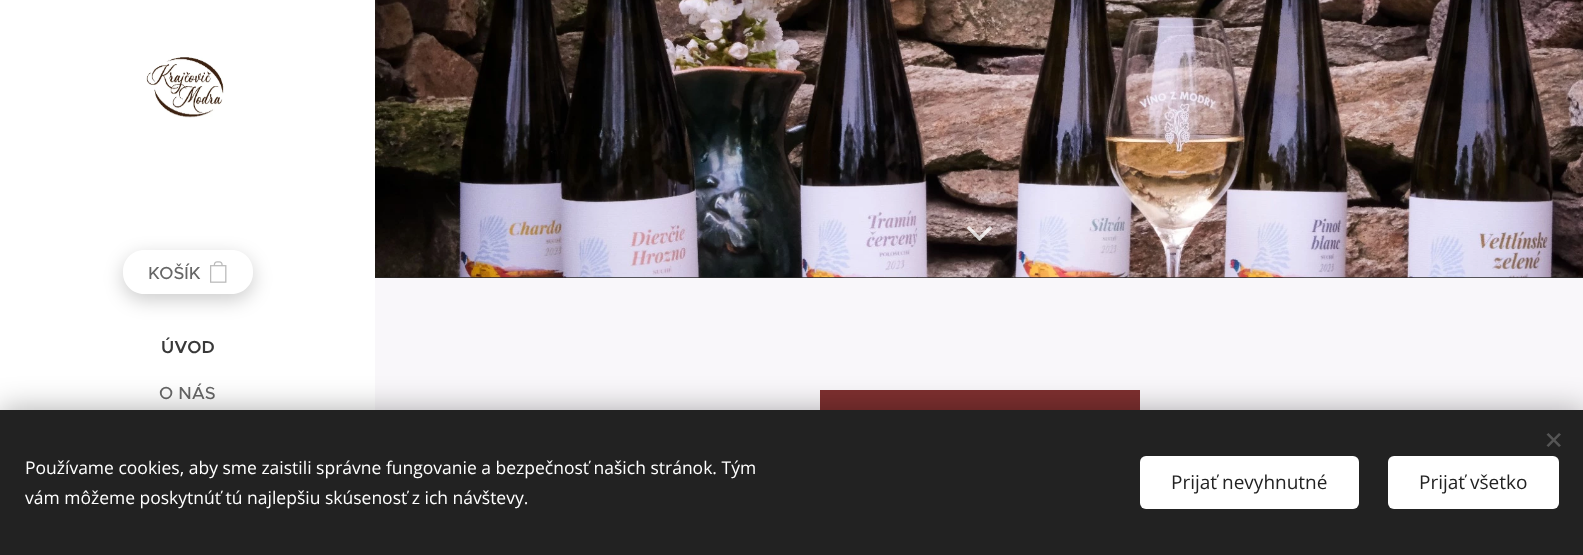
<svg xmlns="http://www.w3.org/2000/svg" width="1583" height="555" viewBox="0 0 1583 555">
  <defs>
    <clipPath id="clip1"><path d="M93 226H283V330H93ZM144 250H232C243.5 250 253 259.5 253 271V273C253 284.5 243.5 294 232 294H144C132.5 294 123 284.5 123 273V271C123 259.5 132.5 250 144 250Z" clip-rule="evenodd"/></clipPath>
    <filter id="blur1" x="-50%" y="-200%" width="200%" height="500%"><feGaussianBlur stdDeviation="9.5"/></filter>
    <filter id="blur2" x="-50%" y="-200%" width="200%" height="500%"><feGaussianBlur stdDeviation="15.5"/></filter>
  </defs>
  <rect width="100%" height="100%" fill="#ffffff"/>
  <image x="146" y="57" width="78" height="61" href="img1.png"/>
  <g clip-path="url(#clip1)">
    <rect x="123" y="256" width="130" height="44" rx="21" fill="#000000" fill-opacity="0.2" filter="url(#blur1)"/>
  </g>
  <rect x="123" y="250" width="130" height="44" rx="21" fill="#ffffff" fill-opacity="0.2"/>
  <text x="148" y="279" font-family="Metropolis" font-size="17.5" font-weight="500" fill="#666666">KOŠÍK</text>
  <image x="210" y="261" width="17" height="22" href="img2.png"/>
  <text x="161" y="353" font-family="Metropolis" font-size="17.5" font-weight="600" fill="#393939">ÚVOD</text>
  <text x="159" y="399" font-family="Metropolis" font-size="17.5" font-weight="500" fill="#666666">O NÁS</text>
  <rect x="375" y="277" width="1208" height="1" fill="#272727"/>
  <image x="375" y="0" width="1208" height="278" href="img3.png"/>
  <image x="967" y="226" width="25" height="15" href="img4.png"/>
  <rect x="375" y="278" width="1208" height="132" fill="#f9f7fa"/>
  <rect x="820" y="390" width="320" height="20" fill="#7d2f2f"/>
  <rect x="0" y="410" width="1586" height="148" fill="#000000" fill-opacity="0.33" filter="url(#blur2)"/>
  <rect x="0" y="410" width="1583" height="145" fill="#222222"/>
  <path d="M1546.5 445.5L1559 433L1561 434.5L1548.5 447Z" fill="#555555"/>
  <path d="M1548.5 433L1561 445.5L1559 447L1546.5 434.5Z" fill="#555555"/>
  <text x="25" y="474" font-family="Open Sans" font-size="17.5" fill="#ffffff">Používame cookies, aby sme zaistili správne fungovanie a bezpečnosť našich stránok. Tým</text>
  <text x="25" y="504" font-family="Open Sans" font-size="17.5" fill="#ffffff">vám môžeme poskytnúť tú najlepšiu skúsenosť z ich návštevy.</text>
  <rect x="1140" y="456" width="219" height="53" rx="6" fill="#ffffff"/>
  <text x="1171" y="489" font-family="Open Sans" font-size="19" fill="#222222">Prijať nevyhnutné</text>
  <rect x="1388" y="456" width="171" height="53" rx="6" fill="#ffffff"/>
  <text x="1419" y="489" font-family="Open Sans" font-size="19" fill="#222222">Prijať všetko</text>
</svg>
